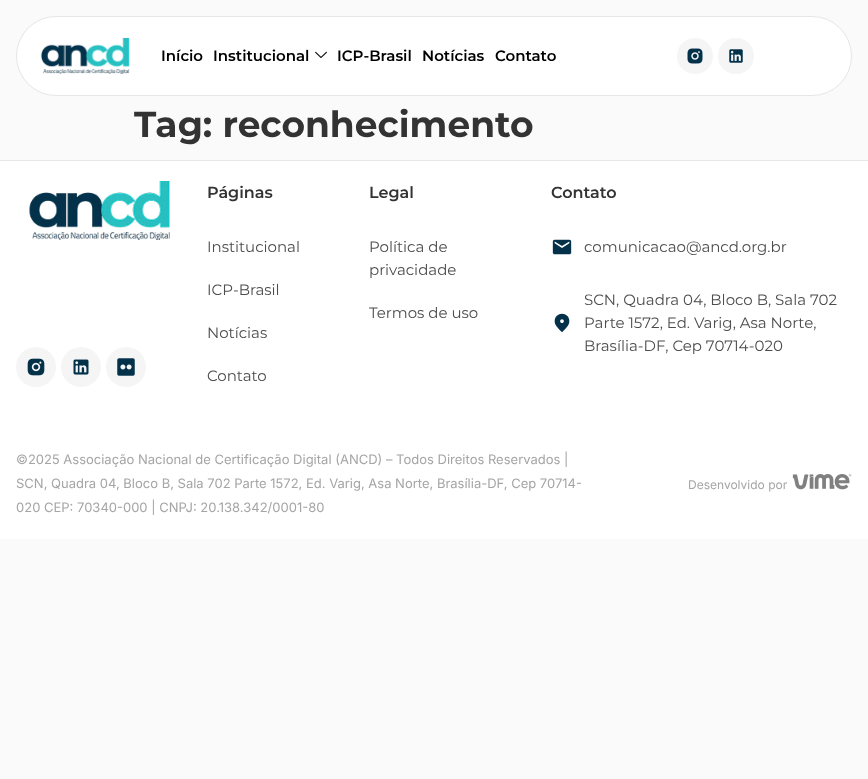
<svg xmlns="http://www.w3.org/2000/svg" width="868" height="779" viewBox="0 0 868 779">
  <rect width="100%" height="100%" fill="#fafafa"/>
  <rect x="16.5" y="16.5" width="835" height="79" rx="39.5" fill="#ffffff" stroke="#e6e6e6"/>
  <image x="40" y="38" width="90" height="36" href="img1.png"/>
  <text x="161" y="61" font-family="Montserrat" font-size="15" font-weight="600" fill="#000000">Início</text>
  <text x="213" y="61" font-family="Montserrat" font-size="15" font-weight="600" fill="#000000">Institucional</text>
  <image x="315" y="51" width="12" height="7" href="img2.png"/>
  <text x="337" y="61" font-family="Montserrat" font-size="15" font-weight="600" fill="#000000">ICP-Brasil</text>
  <text x="422" y="61" font-family="Montserrat" font-size="15" font-weight="600" fill="#000000">Notícias</text>
  <text x="495" y="61" font-family="Montserrat" font-size="15" font-weight="600" fill="#000000">Contato</text>
  <circle cx="695" cy="56" r="18" fill="#f5f5f5"/>
  <image x="687" y="48" width="16" height="16" href="img3.png"/>
  <circle cx="736" cy="56" r="18" fill="#f5f5f5"/>
  <image x="729" y="49" width="14" height="14" href="img4.png"/>
  <text x="134" y="137" font-family="Montserrat" font-size="36" font-weight="bold" fill="#333333">Tag: reconhecimento</text>
  <rect x="0" y="161" width="868" height="378" fill="#ffffff"/>
  <rect x="0" y="160" width="868" height="1" fill="#e6e6e6"/>
  <image x="29" y="181" width="141" height="59" href="img5.png"/>
  <circle cx="36" cy="367" r="20" fill="#f5f5f5"/>
  <image x="27" y="358" width="18" height="18" href="img6.png"/>
  <circle cx="81" cy="367" r="20" fill="#f5f5f5"/>
  <image x="73" y="359" width="16" height="16" href="img7.png"/>
  <circle cx="126" cy="367" r="20" fill="#f5f5f5"/>
  <image x="117" y="358" width="18" height="18" href="img8.png"/>
  <text x="207" y="198" font-family="Montserrat" font-size="16" font-weight="600" fill="#333333">Páginas</text>
  <text x="207" y="252" font-family="Montserrat" font-size="15" fill="#4d4d4d">Institucional</text>
  <text x="207" y="295" font-family="Montserrat" font-size="15" fill="#4d4d4d">ICP-Brasil</text>
  <text x="207" y="338" font-family="Montserrat" font-size="15" fill="#4d4d4d">Notícias</text>
  <text x="207" y="381" font-family="Montserrat" font-size="15" fill="#4d4d4d">Contato</text>
  <text x="369" y="198" font-family="Montserrat" font-size="16" font-weight="600" fill="#333333">Legal</text>
  <text x="369" y="252" font-family="Montserrat" font-size="15" fill="#4d4d4d">Política de</text>
  <text x="369" y="275" font-family="Montserrat" font-size="15" fill="#4d4d4d">privacidade</text>
  <text x="369" y="318" font-family="Montserrat" font-size="15" fill="#4d4d4d">Termos de uso</text>
  <text x="551" y="198" font-family="Montserrat" font-size="16" font-weight="600" fill="#333333">Contato</text>
  <image x="552" y="239" width="20" height="16" href="img9.png"/>
  <text x="584" y="252" font-family="Montserrat" font-size="15" fill="#4d4d4d">comunicacao@ancd.org.br</text>
  <image x="554" y="313" width="16" height="20" href="img10.png"/>
  <text x="584" y="305" font-family="Montserrat" font-size="15" fill="#4d4d4d">SCN, Quadra 04, Bloco B, Sala 702</text>
  <text x="584" y="328" font-family="Montserrat" font-size="15" fill="#4d4d4d">Parte 1572, Ed. Varig, Asa Norte,</text>
  <text x="584" y="351" font-family="Montserrat" font-size="15" fill="#4d4d4d">Brasília-DF, Cep 70714-020</text>
  <text x="16" y="464" font-family="Inter" font-size="13" fill="#a5a5a5">©2025 Associação Nacional de Certificação Digital (ANCD) – Todos Direitos Reservados |</text>
  <text x="16" y="488" font-family="Inter" font-size="13" fill="#a5a5a5">SCN, Quadra 04, Bloco B, Sala 702 Parte 1572, Ed. Varig, Asa Norte, Brasília-DF, Cep 70714-</text>
  <text x="16" y="512" font-family="Inter" font-size="13" fill="#a5a5a5">020 CEP: 70340-000 | CNPJ: 20.138.342/0001-80</text>
  <text x="688" y="489" font-family="Inter" font-size="12" fill="#a5a5a5">Desenvolvido por</text>
  <image x="792" y="474" width="60" height="16" href="img11.png"/>
</svg>
